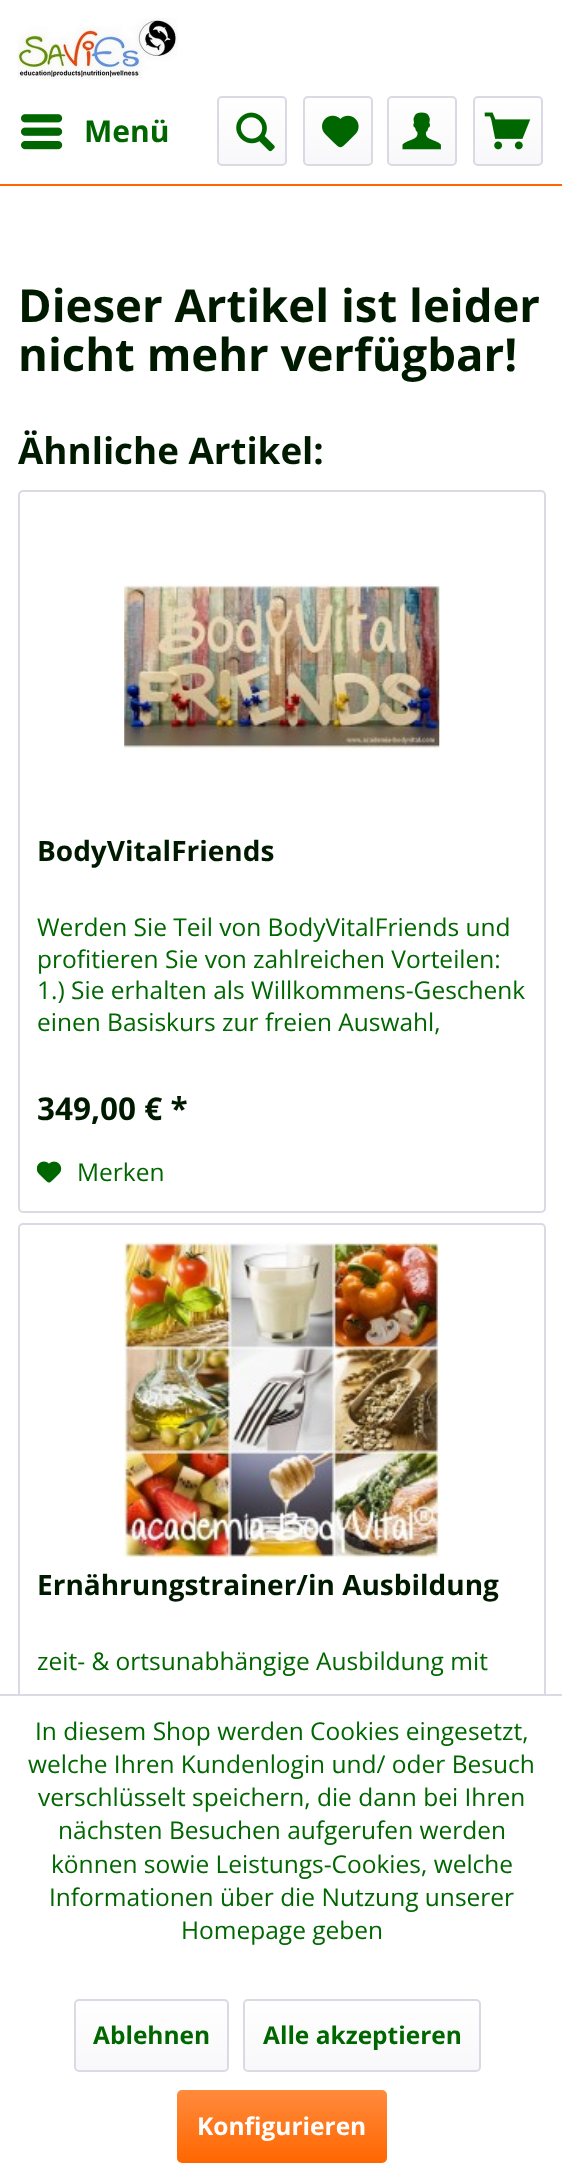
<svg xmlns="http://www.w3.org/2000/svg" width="562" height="2180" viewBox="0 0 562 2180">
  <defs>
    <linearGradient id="g1" gradientUnits="userSpaceOnUse" x1="252" y1="98" x2="252" y2="165"><stop offset="0" stop-color="#ffffff"/><stop offset="1" stop-color="#f8f8fa"/></linearGradient>
    <linearGradient id="g2" gradientUnits="userSpaceOnUse" x1="338" y1="98" x2="338" y2="165"><stop offset="0" stop-color="#ffffff"/><stop offset="1" stop-color="#f8f8fa"/></linearGradient>
    <linearGradient id="g3" gradientUnits="userSpaceOnUse" x1="422" y1="98" x2="422" y2="165"><stop offset="0" stop-color="#ffffff"/><stop offset="1" stop-color="#f8f8fa"/></linearGradient>
    <linearGradient id="g4" gradientUnits="userSpaceOnUse" x1="508" y1="98" x2="508" y2="165"><stop offset="0" stop-color="#ffffff"/><stop offset="1" stop-color="#f8f8fa"/></linearGradient>
    <linearGradient id="g5" gradientUnits="userSpaceOnUse" x1="151" y1="2000" x2="151" y2="2070"><stop offset="0" stop-color="#ffffff"/><stop offset="1" stop-color="#f8f8fa"/></linearGradient>
    <linearGradient id="g6" gradientUnits="userSpaceOnUse" x1="362" y1="2000" x2="362" y2="2070"><stop offset="0" stop-color="#ffffff"/><stop offset="1" stop-color="#f8f8fa"/></linearGradient>
    <linearGradient id="g7" gradientUnits="userSpaceOnUse" x1="282" y1="2090" x2="282" y2="2163"><stop offset="0" stop-color="#ff8b3d"/><stop offset="1" stop-color="#ff6600"/></linearGradient>
  </defs>
  <rect width="100%" height="100%" fill="#ffffff"/>
  <rect x="0" y="184" width="562" height="2" fill="#ff6600"/>
  <image x="17" y="18" width="161" height="61" href="img1.png"/>
  <image x="21" y="114" width="42" height="36" href="img2.png"/>
  <text x="84" y="142" font-family="Open Sans" font-size="30" font-weight="bold" fill="#006600">Menü</text>
  <rect x="219" y="98" width="66" height="67" rx="4" fill="url(#g1)"/>
  <rect x="218" y="97" width="68" height="68" rx="4" fill="none" stroke="#dadae5" stroke-width="2"/>
  <image x="236" y="112" width="39" height="40" href="img3.png"/>
  <rect x="305" y="98" width="66" height="67" rx="4" fill="url(#g2)"/>
  <rect x="304" y="97" width="68" height="68" rx="4" fill="none" stroke="#dadae5" stroke-width="2"/>
  <image x="322" y="115" width="37" height="33" href="img4.png"/>
  <rect x="389" y="98" width="66" height="67" rx="4" fill="url(#g3)"/>
  <rect x="388" y="97" width="68" height="68" rx="4" fill="none" stroke="#dadae5" stroke-width="2"/>
  <image x="402" y="112" width="39" height="38" href="img5.png"/>
  <rect x="474" y="98" width="67" height="67" rx="4" fill="url(#g4)"/>
  <rect x="474" y="97" width="68" height="68" rx="4" fill="none" stroke="#dadae5" stroke-width="2"/>
  <image x="484" y="112" width="47" height="38" href="img6.png"/>
  <text x="18" y="322" font-family="Open Sans" font-size="45.5" font-weight="bold" fill="#001a00">Dieser Artikel ist leider</text>
  <text x="18" y="371" font-family="Open Sans" font-size="45.5" font-weight="bold" fill="#001a00">nicht mehr verfügbar!</text>
  <text x="18" y="464" font-family="Open Sans" font-size="36.75" font-weight="bold" fill="#001a00">Ähnliche Artikel:</text>
  <rect x="19" y="491" width="526" height="721" rx="4" fill="none" stroke="#dadae5" stroke-width="2"/>
  <image x="124" y="584" width="316" height="167" href="img7.png"/>
  <text x="37" y="861" font-family="Open Sans" font-size="28" font-weight="bold" fill="#001a00">BodyVitalFriends</text>
  <text x="37" y="936" font-family="Open Sans" font-size="24.5" fill="#006600">Werden Sie Teil von BodyVitalFriends und</text>
  <text x="37" y="968" font-family="Open Sans" font-size="24.5" fill="#006600">profitieren Sie von zahlreichen Vorteilen:</text>
  <text x="37" y="999" font-family="Open Sans" font-size="24.5" fill="#006600">1.) Sie erhalten als Willkommens-Geschenk</text>
  <text x="37" y="1031" font-family="Open Sans" font-size="24.5" fill="#006600">einen Basiskurs zur freien Auswahl,</text>
  <text x="37" y="1120" font-family="Open Sans" font-size="31.5" font-weight="bold" fill="#001a00">349,00 € *</text>
  <image x="37" y="1161" width="25" height="22" href="img8.png"/>
  <text x="77" y="1181" font-family="Open Sans" font-size="24.5" fill="#006600">Merken</text>
  <rect x="19" y="1224" width="526" height="721" rx="4" fill="none" stroke="#dadae5" stroke-width="2"/>
  <image x="124" y="1242" width="316" height="316" href="img9.png"/>
  <text x="37" y="1595" font-family="Open Sans" font-size="28" font-weight="bold" fill="#001a00">Ernährungstrainer/in Ausbildung</text>
  <text x="37" y="1670" font-family="Open Sans" font-size="24.5" fill="#006600">zeit- &amp; ortsunabhängige Ausbildung mit</text>
  <rect x="18" y="1696" width="528" height="250" fill="#ffffff"/>
  <rect x="0" y="1694" width="562" height="2" fill="#dadae5"/>
  <text x="35" y="1740" font-family="Open Sans" font-size="24.5" fill="#006600">In diesem Shop werden Cookies eingesetzt,</text>
  <text x="28" y="1773" font-family="Open Sans" font-size="24.5" fill="#006600">welche Ihren Kundenlogin und/ oder Besuch</text>
  <text x="38" y="1806" font-family="Open Sans" font-size="24.5" fill="#006600">verschlüsselt speichern, die dann bei Ihren</text>
  <text x="58" y="1839" font-family="Open Sans" font-size="24.5" fill="#006600">nächsten Besuchen aufgerufen werden</text>
  <text x="51" y="1873" font-family="Open Sans" font-size="24.5" fill="#006600">können sowie Leistungs-Cookies, welche</text>
  <text x="49" y="1906" font-family="Open Sans" font-size="24.5" fill="#006600">Informationen über die Nutzung unserer</text>
  <text x="181" y="1939" font-family="Open Sans" font-size="24.5" fill="#006600">Homepage geben</text>
  <rect x="75" y="2000" width="153" height="70" rx="4" fill="url(#g5)"/>
  <rect x="75" y="2000" width="153" height="71" rx="4" fill="none" stroke="#dadae5" stroke-width="2"/>
  <text x="93" y="2044" font-family="Open Sans" font-size="24.5" font-weight="bold" fill="#006600">Ablehnen</text>
  <rect x="245" y="2000" width="235" height="70" rx="4" fill="url(#g6)"/>
  <rect x="244" y="2000" width="236" height="71" rx="4" fill="none" stroke="#dadae5" stroke-width="2"/>
  <text x="263" y="2044" font-family="Open Sans" font-size="24.5" font-weight="bold" fill="#006600">Alle akzeptieren</text>
  <rect x="177" y="2090" width="210" height="73" rx="5" fill="url(#g7)"/>
  <text x="197" y="2135" font-family="Open Sans" font-size="24.5" font-weight="bold" fill="#ffffff">Konfigurieren</text>
</svg>
